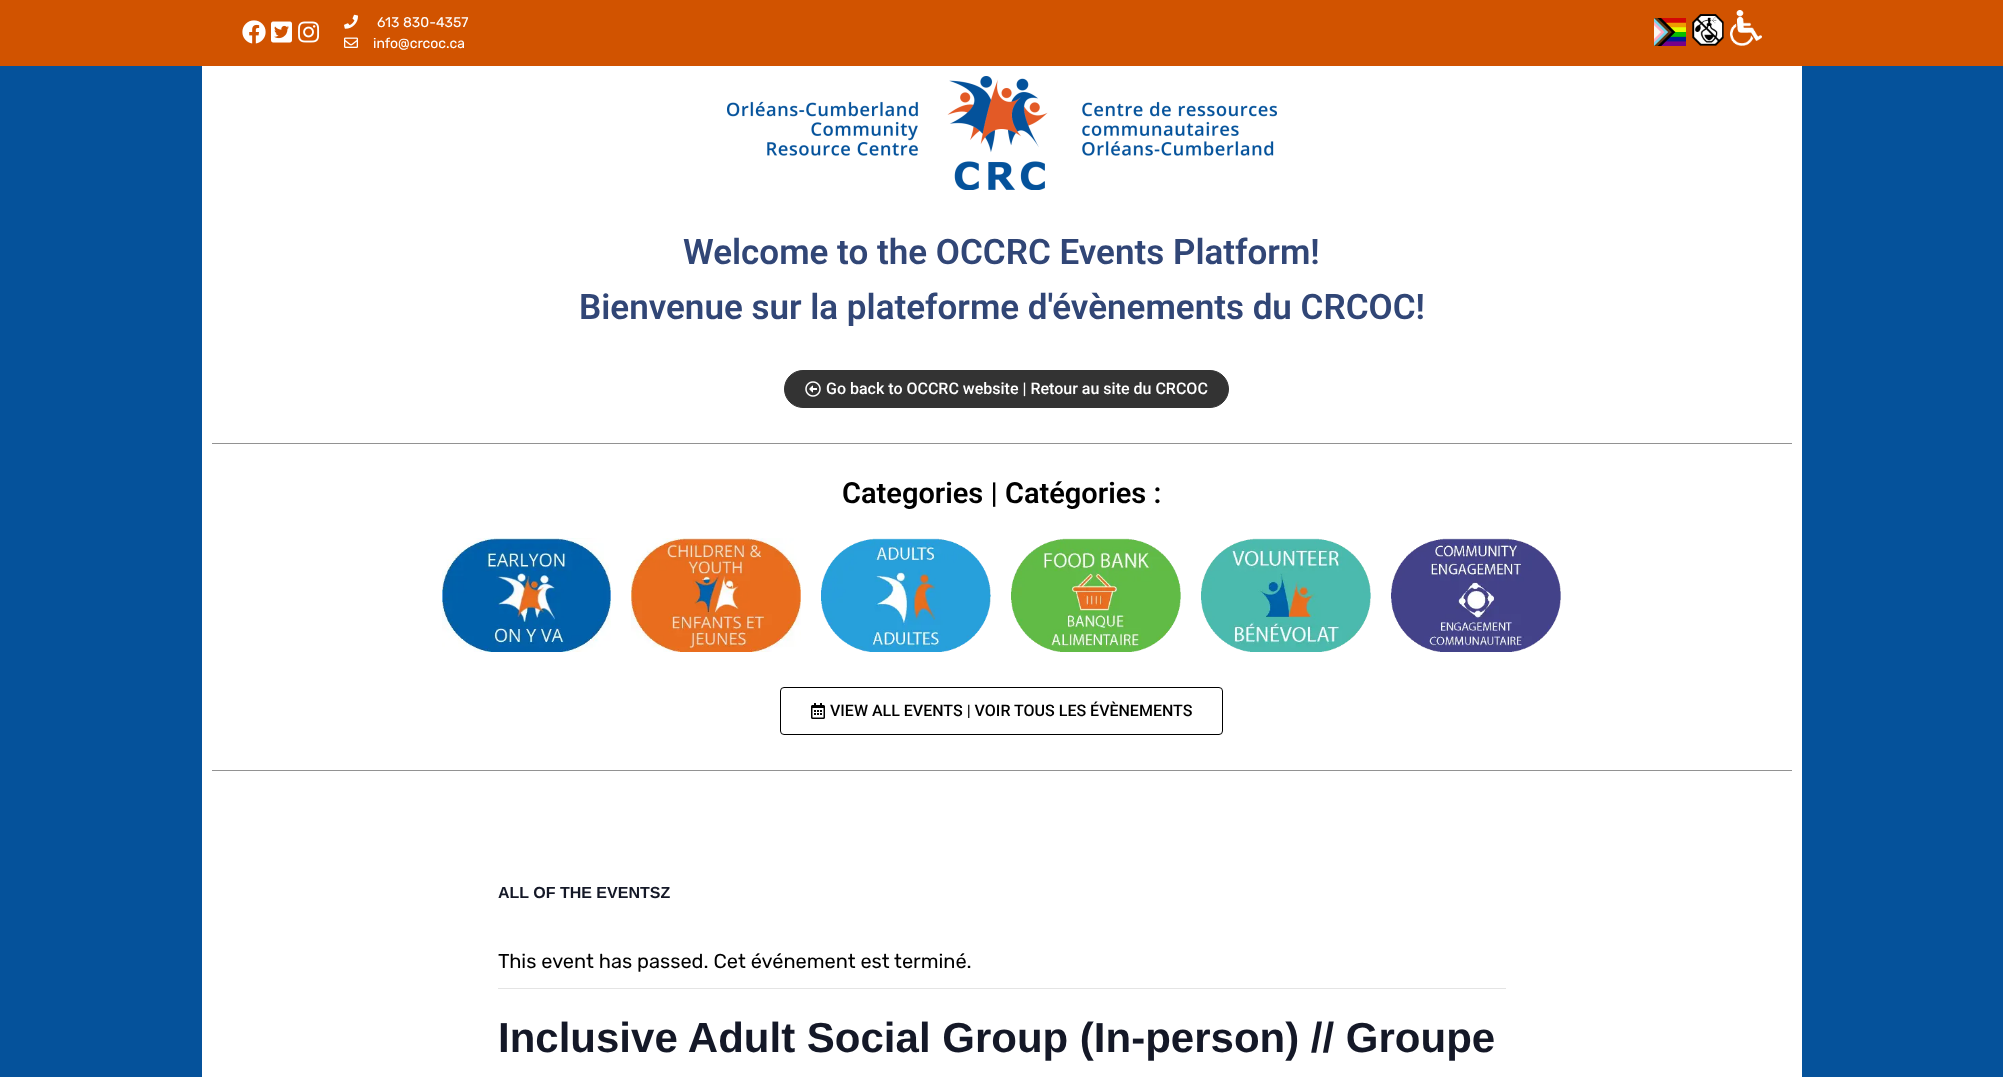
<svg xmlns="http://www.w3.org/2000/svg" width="2003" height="1077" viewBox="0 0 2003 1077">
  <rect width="100%" height="100%" fill="#05529b"/>
  <rect x="0" y="0" width="2003" height="66" fill="#d15300"/>
  <image x="242" y="20" width="24" height="24" href="img1.png"/>
  <image x="271" y="21" width="21" height="22" href="img2.png"/>
  <image x="298" y="21" width="22" height="22" href="img3.png"/>
  <image x="344" y="14" width="14" height="15" href="img4.png"/>
  <text x="377" y="27" font-family="Rubik" font-size="14" fill="#ffffff">613 830-4357</text>
  <image x="344" y="37" width="14" height="11" href="img5.png"/>
  <text x="373" y="48" font-family="Rubik" font-size="14" fill="#ffffff">info@crcoc.ca</text>
  <image x="1654" y="18" width="32" height="28" href="img6.png"/>
  <image x="1692" y="14" width="32" height="32" href="img7.png"/>
  <image x="1730" y="10" width="32" height="36" href="img8.png"/>
  <rect x="202" y="66" width="1600" height="730" fill="#ffffff"/>
  <image x="727" y="76" width="550" height="114" href="img9.png"/>
  <text x="683" y="264" font-family="Roboto" font-size="35" font-weight="600" fill="#314676">Welcome to the OCCRC Events Platform!</text>
  <text x="579" y="319" font-family="Roboto" font-size="35" font-weight="600" fill="#314676">Bienvenue sur la plateforme d'évènements du CRCOC!</text>
  <rect x="784.5" y="370.5" width="444" height="37" rx="18.5" fill="#333333" stroke="#333333"/>
  <image x="805" y="381" width="16" height="16" href="img10.png"/>
  <text x="826" y="394" font-family="Roboto" font-size="16" font-weight="500" fill="#ffffff">Go back to OCCRC website | Retour au site du CRCOC</text>
  <rect x="212" y="443" width="1580" height="1" fill="#929292"/>
  <text x="842" y="503" font-family="Roboto" font-size="29" font-weight="600" fill="#000000">Categories | Catégories :</text>
  <image x="442" y="538" width="169" height="114" href="img11.png"/>
  <image x="631" y="538" width="170" height="114" href="img12.png"/>
  <image x="821" y="538" width="170" height="114" href="img13.png"/>
  <image x="1011" y="538" width="170" height="114" href="img14.png"/>
  <image x="1201" y="538" width="170" height="114" href="img15.png"/>
  <image x="1391" y="538" width="170" height="114" href="img16.png"/>
  <rect x="780.5" y="687.5" width="442" height="47" rx="3.5" fill="none" stroke="#000000"/>
  <image x="811" y="703" width="14" height="16" href="img17.png"/>
  <text x="830" y="716" font-family="Roboto" font-size="16" font-weight="500" fill="#000000">VIEW ALL EVENTS | VOIR TOUS LES ÉVÈNEMENTS</text>
  <rect x="212" y="770" width="1580" height="1" fill="#929292"/>
  <rect x="202" y="796" width="1600" height="281" fill="#ffffff"/>
  <text x="498" y="898" font-family="Liberation Sans" font-size="16" font-weight="bold" fill="#141827">ALL OF THE EVENTSZ</text>
  <rect x="498" y="988" width="1008" height="1" fill="#e4e4e4"/>
  <text x="498" y="968" font-family="Rubik" font-size="20" fill="#000000">This event has passed. Cet événement est terminé.</text>
  <text x="498" y="1052" font-family="Liberation Sans" font-size="42" font-weight="bold" fill="#141827">Inclusive Adult Social Group (In-person) // Groupe</text>
</svg>
